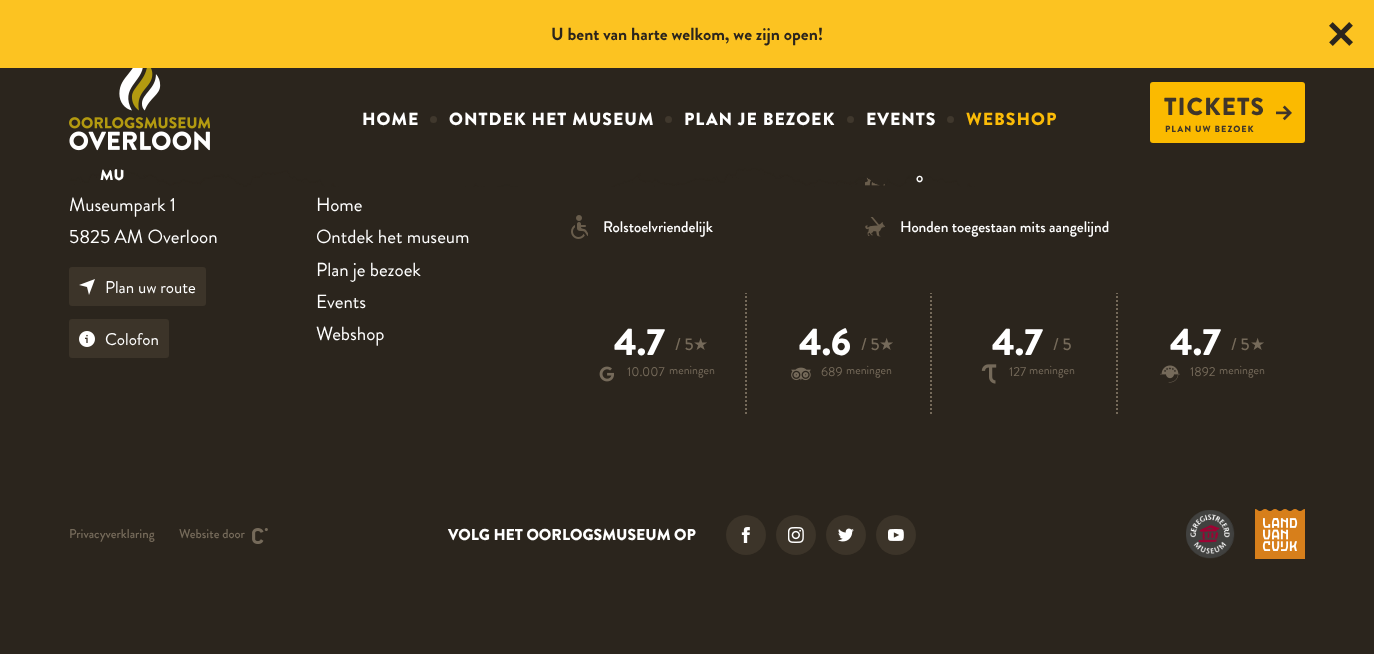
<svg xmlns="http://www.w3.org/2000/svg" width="1374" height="654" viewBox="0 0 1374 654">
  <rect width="100%" height="100%" fill="#2b251d"/>
  <rect x="0" y="0" width="1374" height="68" fill="#fcc321"/>
  <text x="551" y="40" font-family="Brandon Grotesque" font-size="17.6" font-weight="bold" fill="#2b251d">U bent van harte welkom, we zijn open!</text>
  <image x="1329" y="22" width="24" height="24" href="img1.png"/>
  <image x="69" y="68" width="141" height="83" href="img2.png"/>
  <text x="362" y="125" font-family="Brandon Grotesque" font-size="17.6" font-weight="900" letter-spacing="1" fill="#ffffff">HOME</text>
  <circle cx="433.5" cy="119.5" r="3.5" fill="#40382d"/>
  <text x="449" y="125" font-family="Brandon Grotesque" font-size="17.6" font-weight="900" letter-spacing="1" fill="#ffffff">ONTDEK HET MUSEUM</text>
  <circle cx="668.5" cy="119.5" r="3.5" fill="#40382d"/>
  <text x="684" y="125" font-family="Brandon Grotesque" font-size="17.6" font-weight="900" letter-spacing="1" fill="#ffffff">PLAN JE BEZOEK</text>
  <circle cx="850.5" cy="119.5" r="3.5" fill="#40382d"/>
  <text x="866" y="125" font-family="Brandon Grotesque" font-size="17.6" font-weight="900" letter-spacing="1" fill="#ffffff">EVENTS</text>
  <circle cx="950.5" cy="119.5" r="3.5" fill="#40382d"/>
  <text x="966" y="125" font-family="Brandon Grotesque" font-size="17.6" font-weight="900" letter-spacing="1" fill="#fabb08">WEBSHOP</text>
  <rect x="1150" y="82" width="155" height="61" rx="3" fill="#fbba00"/>
  <text x="1164" y="115" font-family="Brandon Grotesque" font-size="24.5" font-weight="900" letter-spacing="1" fill="#3f362a">TICKETS</text>
  <image x="1276" y="105" width="16" height="16" href="img3.png"/>
  <text x="1165" y="132" font-family="Brandon Grotesque" font-size="9" font-weight="900" letter-spacing="1" fill="#3f362a">PLAN UW BEZOEK</text>
  <text x="100" y="180" font-family="Brandon Grotesque" font-size="15.25" font-weight="900" fill="#ffffff">MU</text>
  <image x="865" y="176" width="20" height="10" href="img6.png"/>
  <text x="916" y="182" font-family="Brandon Grotesque" font-size="15.25" font-weight="500" fill="#ffffff">o</text>
  <image x="70" y="168" width="1008" height="19" href="img4.png"/>
  <text x="69" y="211" font-family="Brandon Grotesque" font-size="19" fill="#ffffff">Museumpark 1</text>
  <text x="69" y="243" font-family="Brandon Grotesque" font-size="19" fill="#ffffff">5825 AM Overloon</text>
  <rect x="69" y="267" width="137" height="39" rx="3" fill="#3c3429"/>
  <path d="M79 285L95 279L89 295L87 287Z" fill="#ffffff"/>
  <text x="105" y="293" font-family="Brandon Grotesque" font-size="17" fill="#ffffff">Plan uw route</text>
  <rect x="69" y="319" width="100" height="39" rx="3" fill="#3c3429"/>
  <image x="79" y="331" width="16" height="16" href="img5.png"/>
  <text x="105" y="345" font-family="Brandon Grotesque" font-size="17" fill="#ffffff">Colofon</text>
  <text x="316" y="211" font-family="Brandon Grotesque" font-size="19" fill="#ffffff">Home</text>
  <text x="316" y="243" font-family="Brandon Grotesque" font-size="19" fill="#ffffff">Ontdek het museum</text>
  <text x="316" y="276" font-family="Brandon Grotesque" font-size="19" fill="#ffffff">Plan je bezoek</text>
  <text x="316" y="308" font-family="Brandon Grotesque" font-size="19" fill="#ffffff">Events</text>
  <text x="316" y="340" font-family="Brandon Grotesque" font-size="19" fill="#ffffff">Webshop</text>
  <image x="571" y="215" width="17" height="24" href="img7.png"/>
  <text x="603" y="232" font-family="Brandon Grotesque" font-size="15.25" font-weight="500" fill="#ffffff">Rolstoelvriendelijk</text>
  <image x="865" y="217" width="20" height="20" href="img8.png"/>
  <text x="900" y="232" font-family="Brandon Grotesque" font-size="15.25" font-weight="500" fill="#ffffff">Honden toegestaan mits aangelijnd</text>
  <image x="745" y="293" width="2" height="121" href="img9.png"/>
  <text x="614" y="355" font-family="Brandon Grotesque" font-size="38" font-weight="900" fill="#ffffff">4.7</text>
  <text x="675" y="350" font-family="Brandon Grotesque" font-size="17" font-weight="500" fill="#756a5a">/ 5</text>
  <text x="693" y="350" font-family="DejaVu Sans" font-size="17" fill="#756a5a">★</text>
  <image x="599" y="366" width="15" height="16" href="img10.png"/>
  <text x="627" y="376" font-family="Brandon Grotesque" font-size="13" fill="#756a5a">10.007</text>
  <text x="669" y="374" font-family="Brandon Grotesque" font-size="12" fill="#756a5a">meningen</text>
  <image x="930" y="293" width="2" height="121" href="img9.png"/>
  <text x="799" y="355" font-family="Brandon Grotesque" font-size="38" font-weight="900" fill="#ffffff">4.6</text>
  <text x="861" y="350" font-family="Brandon Grotesque" font-size="17" font-weight="500" fill="#756a5a">/ 5</text>
  <text x="879" y="350" font-family="DejaVu Sans" font-size="17" fill="#756a5a">★</text>
  <image x="791" y="367" width="20" height="14" href="img11.png"/>
  <text x="821" y="376" font-family="Brandon Grotesque" font-size="13" fill="#756a5a">689</text>
  <text x="846" y="374" font-family="Brandon Grotesque" font-size="12" fill="#756a5a">meningen</text>
  <image x="1116" y="293" width="2" height="121" href="img9.png"/>
  <text x="992" y="355" font-family="Brandon Grotesque" font-size="38" font-weight="900" fill="#ffffff">4.7</text>
  <text x="1053" y="350" font-family="Brandon Grotesque" font-size="17" font-weight="500" fill="#756a5a">/ 5</text>
  <image x="981" y="364" width="16" height="20" href="img12.png"/>
  <text x="1009" y="376" font-family="Brandon Grotesque" font-size="13" fill="#756a5a">127</text>
  <text x="1029" y="374" font-family="Brandon Grotesque" font-size="12" fill="#756a5a">meningen</text>
  <text x="1170" y="355" font-family="Brandon Grotesque" font-size="38" font-weight="900" fill="#ffffff">4.7</text>
  <text x="1231" y="350" font-family="Brandon Grotesque" font-size="17" font-weight="500" fill="#756a5a">/ 5</text>
  <text x="1250" y="350" font-family="DejaVu Sans" font-size="17" fill="#756a5a">★</text>
  <image x="1160" y="365" width="20" height="18" href="img13.png"/>
  <text x="1190" y="376" font-family="Brandon Grotesque" font-size="13" fill="#756a5a">1892</text>
  <text x="1219" y="374" font-family="Brandon Grotesque" font-size="12" fill="#756a5a">meningen</text>
  <text x="69" y="538" font-family="Brandon Grotesque" font-size="12.75" font-weight="500" fill="#756a5a">Privacyverklaring</text>
  <text x="179" y="538" font-family="Brandon Grotesque" font-size="12.75" font-weight="500" fill="#756a5a">Website door</text>
  <image x="252" y="528" width="16" height="16" href="img14.png"/>
  <text x="448" y="540" font-family="Brandon Grotesque" font-size="15.8" font-weight="900" fill="#ffffff">VOLG HET OORLOGSMUSEUM OP</text>
  <circle cx="746" cy="535" r="20" fill="#3c3429"/>
  <image x="741" y="527" width="9" height="16" href="img15.png"/>
  <circle cx="796" cy="535" r="20" fill="#3c3429"/>
  <image x="788" y="527" width="16" height="16" href="img16.png"/>
  <circle cx="846" cy="535" r="20" fill="#3c3429"/>
  <image x="838" y="528" width="16" height="14" href="img17.png"/>
  <circle cx="896" cy="535" r="20" fill="#3c3429"/>
  <image x="888" y="529" width="16" height="12" href="img18.png"/>
  <image x="1186" y="510" width="49" height="49" href="img19.png"/>
  <image x="1255" y="509" width="50" height="50" href="img20.png"/>
</svg>
